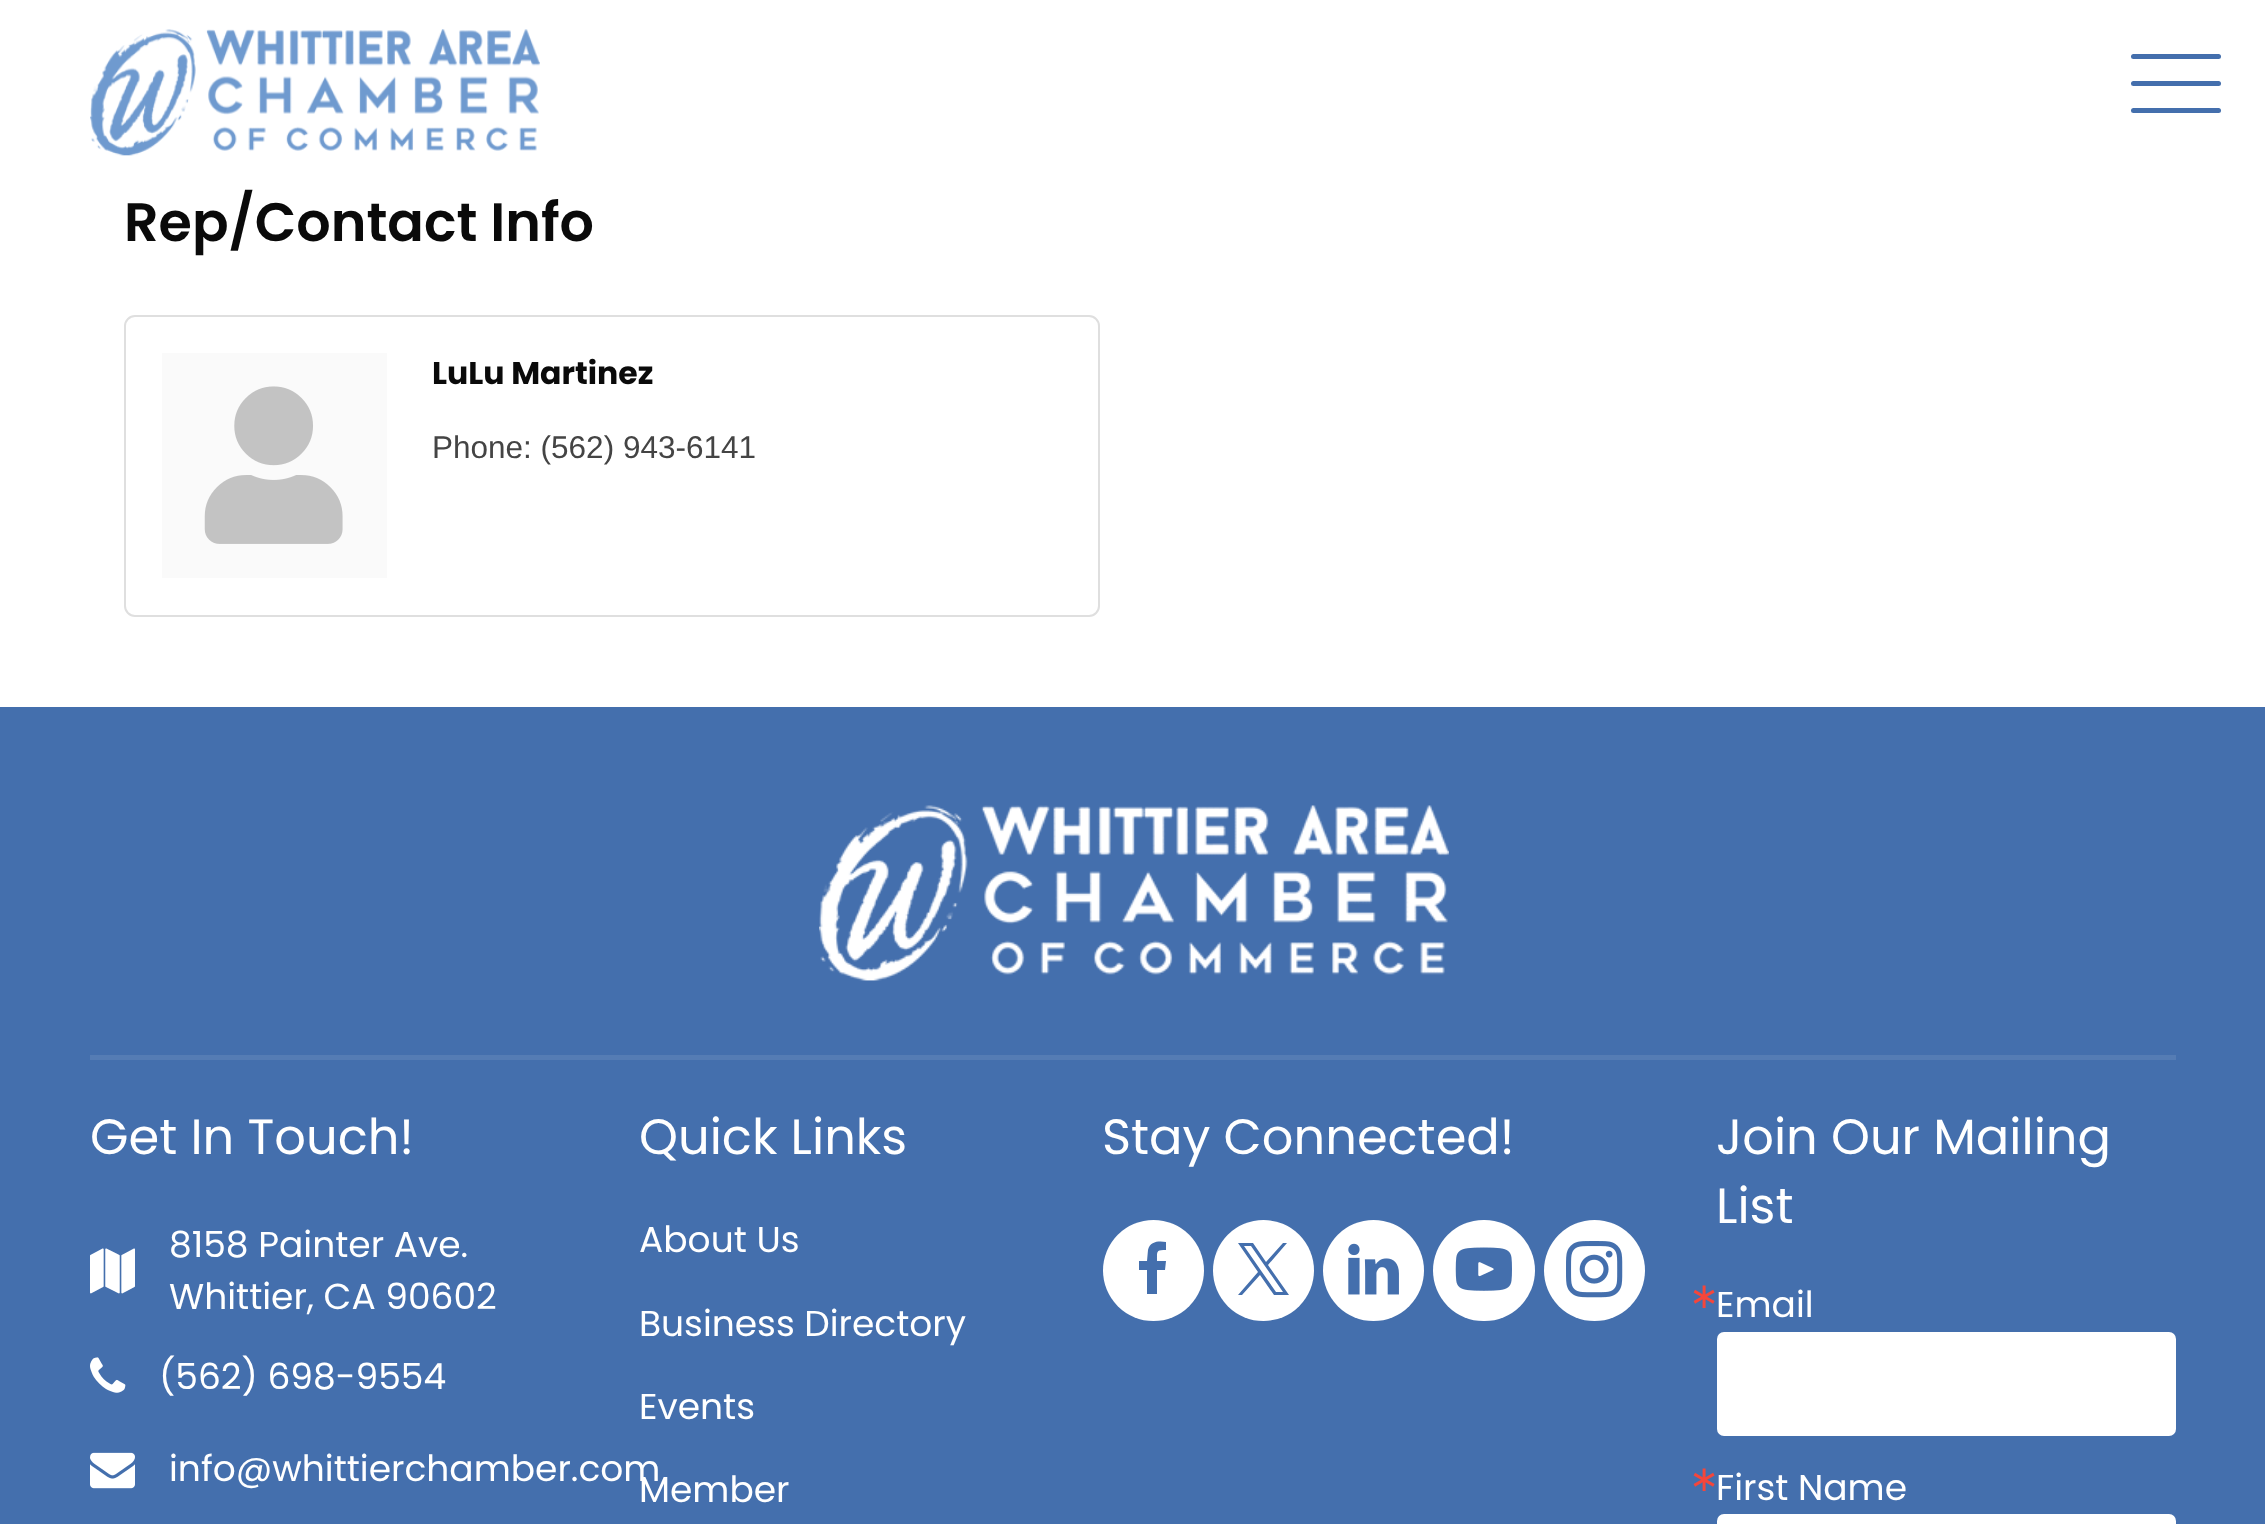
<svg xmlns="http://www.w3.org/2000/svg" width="2265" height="1524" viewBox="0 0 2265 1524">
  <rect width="100%" height="100%" fill="#ffffff"/>
  <image x="90" y="29" width="450" height="127" href="img1.png"/>
  <rect x="2131" y="81" width="90" height="5" rx="2.5" fill="#446fad"/>
  <rect x="2131" y="54" width="90" height="5" rx="2.5" fill="#446fad"/>
  <rect x="2131" y="108" width="90" height="5" rx="2.5" fill="#446fad"/>
  <text x="124" y="241" font-family="Poppins" font-size="54" font-weight="600" fill="#0a0a0a">Rep/Contact Info</text>
  <rect x="125" y="316" width="974" height="300" rx="10" fill="none" stroke="#dfdfdf" stroke-width="2"/>
  <rect x="162" y="353" width="225" height="225" fill="#fafafa"/>
  <image x="204" y="386" width="139" height="158" href="img2.png"/>
  <text x="432" y="384" font-family="Poppins" font-size="31.5" font-weight="bold" fill="#0a0a0a">LuLu Martinez</text>
  <text x="432" y="458" font-family="Liberation Sans" font-size="31.5" fill="#444444">Phone: (562) 943-6141</text>
  <rect x="0" y="707" width="2265" height="817" fill="#446fad"/>
  <image x="819" y="805" width="630" height="176" href="img3.png"/>
  <rect x="90" y="1055" width="2086" height="5" fill="#557cb4"/>
  <text x="90" y="1154" font-family="Poppins" font-size="49.5" fill="#ffffff">Get In Touch!</text>
  <image x="90" y="1248" width="45" height="46" href="img4.png"/>
  <text x="169" y="1257" font-family="Poppins" font-size="36" fill="#ffffff">8158 Painter Ave.</text>
  <text x="169" y="1309" font-family="Poppins" font-size="36" fill="#ffffff">Whittier, CA 90602</text>
  <image x="90" y="1357" width="36" height="36" href="img5.png"/>
  <text x="159" y="1389" font-family="Poppins" font-size="36" fill="#ffffff">(562) 698-9554</text>
  <image x="90" y="1452" width="45" height="37" href="img6.png"/>
  <text x="169" y="1481" font-family="Poppins" font-size="36" fill="#ffffff">info@whittierchamber.com</text>
  <text x="639" y="1154" font-family="Poppins" font-size="49.5" fill="#ffffff">Quick Links</text>
  <text x="639" y="1252" font-family="Poppins" font-size="36" fill="#ffffff">About Us</text>
  <text x="639" y="1336" font-family="Poppins" font-size="36" fill="#ffffff">Business Directory</text>
  <text x="639" y="1419" font-family="Poppins" font-size="36" fill="#ffffff">Events</text>
  <text x="639" y="1502" font-family="Poppins" font-size="36" fill="#ffffff">Member</text>
  <text x="1102" y="1154" font-family="Poppins" font-size="49.5" fill="#ffffff">Stay Connected!</text>
  <circle cx="1153.5" cy="1270.5" r="50.5" fill="#ffffff"/>
  <path d="M1166 1242V1250C1156 1250 1157 1251 1157 1261H1166L1165 1270H1157V1294H1147V1270H1139V1261H1147L1148 1250C1150 1241 1159 1241 1166 1242Z" fill="#446fad"/>
  <circle cx="1263.5" cy="1270.5" r="50.5" fill="#ffffff"/>
  <path d="M1268 1265L1287 1243H1283L1266 1262L1253 1243H1238L1258 1272L1238 1295H1242L1260 1275L1274 1295H1289ZM1262 1272L1244 1246H1251L1283 1292H1276ZM1262 1272H1262Z" fill="#446fad"/>
  <circle cx="1373.5" cy="1270.5" r="50.5" fill="#ffffff"/>
  <image x="1348" y="1243" width="51" height="52" href="img7.png"/>
  <rect x="1433" y="1220" width="102" height="101" rx="50.5" fill="#ffffff"/>
  <image x="1455" y="1247" width="57" height="44" href="img8.png"/>
  <circle cx="1594.5" cy="1270.5" r="50.5" fill="#ffffff"/>
  <image x="1566" y="1241" width="57" height="57" href="img9.png"/>
  <text x="1716" y="1154" font-family="Poppins" font-size="49.5" fill="#ffffff">Join Our Mailing</text>
  <text x="1716" y="1223" font-family="Poppins" font-size="49.5" fill="#ffffff">List</text>
  <text x="1689" y="1308" font-family="DejaVu Sans" font-size="36" fill="#f5463b">∗</text>
  <text x="1716" y="1317" font-family="Poppins" font-size="36" fill="#ffffff">Email</text>
  <rect x="1717" y="1332" width="459" height="104" rx="7" fill="#ffffff"/>
  <text x="1689" y="1491" font-family="DejaVu Sans" font-size="36" fill="#f5463b">∗</text>
  <text x="1716" y="1500" font-family="Poppins" font-size="36" fill="#ffffff">First Name</text>
  <rect x="1717" y="1514" width="459" height="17" rx="7" fill="#ffffff"/>
</svg>
